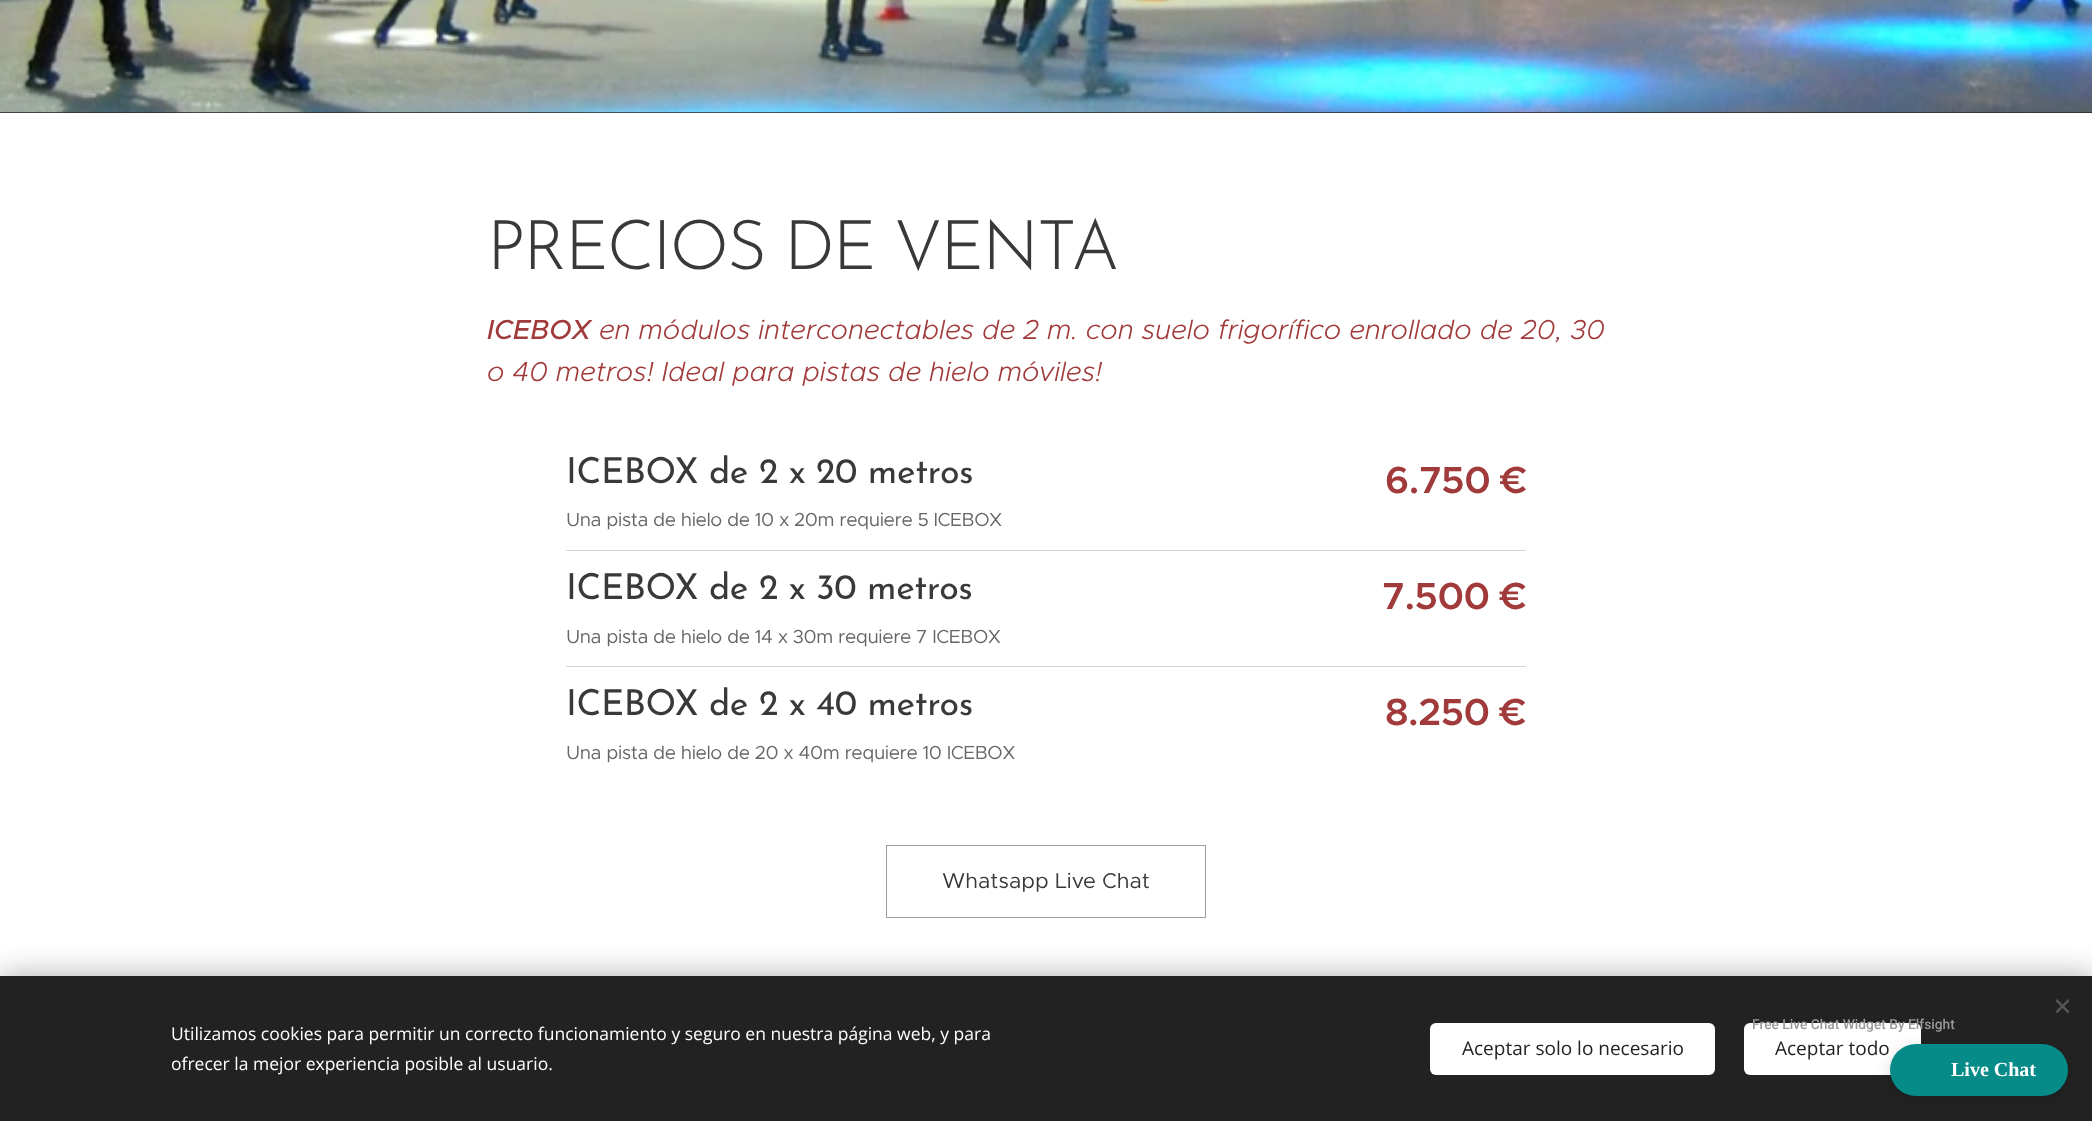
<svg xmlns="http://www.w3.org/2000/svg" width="2092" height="1121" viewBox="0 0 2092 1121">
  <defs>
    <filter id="blur1" x="-50%" y="-200%" width="200%" height="500%"><feGaussianBlur stdDeviation="15.5"/></filter>
    <filter id="blur2" x="-50%" y="-200%" width="200%" height="500%"><feGaussianBlur stdDeviation="7.5"/></filter>
  </defs>
  <rect width="100%" height="100%" fill="#ffffff"/>
  <rect x="0" y="112" width="2092" height="1" fill="#272727"/>
  <image x="0" y="0" width="2092" height="113" href="img1.png"/>
  <text x="487" y="269" font-family="Josefin Sans" font-size="68.75" font-weight="300" letter-spacing="-2" fill="#393939">PRECIOS DE VENTA</text>
  <text x="487" y="339" font-family="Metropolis" font-size="27.5" font-weight="500" font-style="italic" fill="#a13a3b">ICEBOX</text>
  <text x="599" y="339" font-family="Metropolis" font-size="27.5" font-weight="300" font-style="italic" fill="#a13a3b">en módulos interconectables de 2 m. con suelo frigorífico enrollado de 20, 30</text>
  <text x="487" y="381" font-family="Metropolis" font-size="27.5" font-weight="300" font-style="italic" fill="#a13a3b">o 40 metros! Ideal para pistas de hielo móviles!</text>
  <rect x="566" y="550" width="960" height="1" fill="#d4d4d4"/>
  <text x="566" y="483" font-family="Josefin Sans" font-size="35.75" letter-spacing="-0.4" fill="#393939">ICEBOX de 2 x 20 metros</text>
  <text x="566" y="526" font-family="Metropolis" font-size="19" letter-spacing="-0.4" fill="#666666">Una pista de hielo de 10 x 20m requiere 5 ICEBOX</text>
  <text x="1385" y="493" font-family="Metropolis" font-size="38" font-weight="600" letter-spacing="-0.4" fill="#a13a3b">6.750 €</text>
  <rect x="566" y="666" width="960" height="1" fill="#d4d4d4"/>
  <text x="566" y="599" font-family="Josefin Sans" font-size="35.75" letter-spacing="-0.4" fill="#393939">ICEBOX de 2 x 30 metros</text>
  <text x="566" y="643" font-family="Metropolis" font-size="19" letter-spacing="-0.4" fill="#666666">Una pista de hielo de 14 x 30m requiere 7 ICEBOX</text>
  <text x="1382" y="609" font-family="Metropolis" font-size="38" font-weight="600" letter-spacing="-0.4" fill="#a13a3b">7.500 €</text>
  <text x="566" y="715" font-family="Josefin Sans" font-size="35.75" letter-spacing="-0.4" fill="#393939">ICEBOX de 2 x 40 metros</text>
  <text x="566" y="759" font-family="Metropolis" font-size="19" letter-spacing="-0.4" fill="#666666">Una pista de hielo de 20 x 40m requiere 10 ICEBOX</text>
  <text x="1385" y="725" font-family="Metropolis" font-size="38" font-weight="600" letter-spacing="-0.4" fill="#a13a3b">8.250 €</text>
  <rect x="886.5" y="845.5" width="319" height="72" fill="none" stroke="#9d9d9d"/>
  <text x="942" y="888" font-family="Metropolis" font-size="21.5" fill="#393939">Whatsapp Live Chat</text>
  <rect x="0" y="976" width="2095" height="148" fill="#000000" fill-opacity="0.33" filter="url(#blur1)"/>
  <rect x="0" y="976" width="2092" height="145" fill="#222222"/>
  <path d="M2055.5 1011.5L2068 999L2069.5 1001L2057 1013.5Z" fill="#555555"/>
  <path d="M2057 999L2069.5 1011.5L2068 1013.5L2055.5 1001Z" fill="#555555"/>
  <text x="171" y="1040" font-family="Open Sans" font-size="17.5" fill="#ffffff">Utilizamos cookies para permitir un correcto funcionamiento y seguro en nuestra página web, y para</text>
  <text x="171" y="1070" font-family="Open Sans" font-size="17.5" fill="#ffffff">ofrecer la mejor experiencia posible al usuario.</text>
  <rect x="1430" y="1023" width="285" height="52" rx="6" fill="#ffffff"/>
  <text x="1462" y="1055" font-family="Open Sans" font-size="19" fill="#222222">Aceptar solo lo necesario</text>
  <rect x="1744" y="1023" width="177" height="52" rx="6" fill="#ffffff"/>
  <text x="1775" y="1055" font-family="Open Sans" font-size="19" fill="#222222">Aceptar todo</text>
  <rect x="1890" y="1048" width="178" height="52" rx="26" fill="#000000" fill-opacity="0.15" filter="url(#blur2)"/>
  <text x="1752" y="1029" font-family="Roboto" font-size="13.75" font-weight="500" fill="#989898">Free Live Chat Widget By Elfsight</text>
  <rect x="1890" y="1044" width="178" height="52" rx="26" fill="#068b88"/>
  <text x="1951" y="1076" font-family="Liberation Serif" font-size="20" font-weight="bold" fill="#ffffff">Live Chat</text>
</svg>
